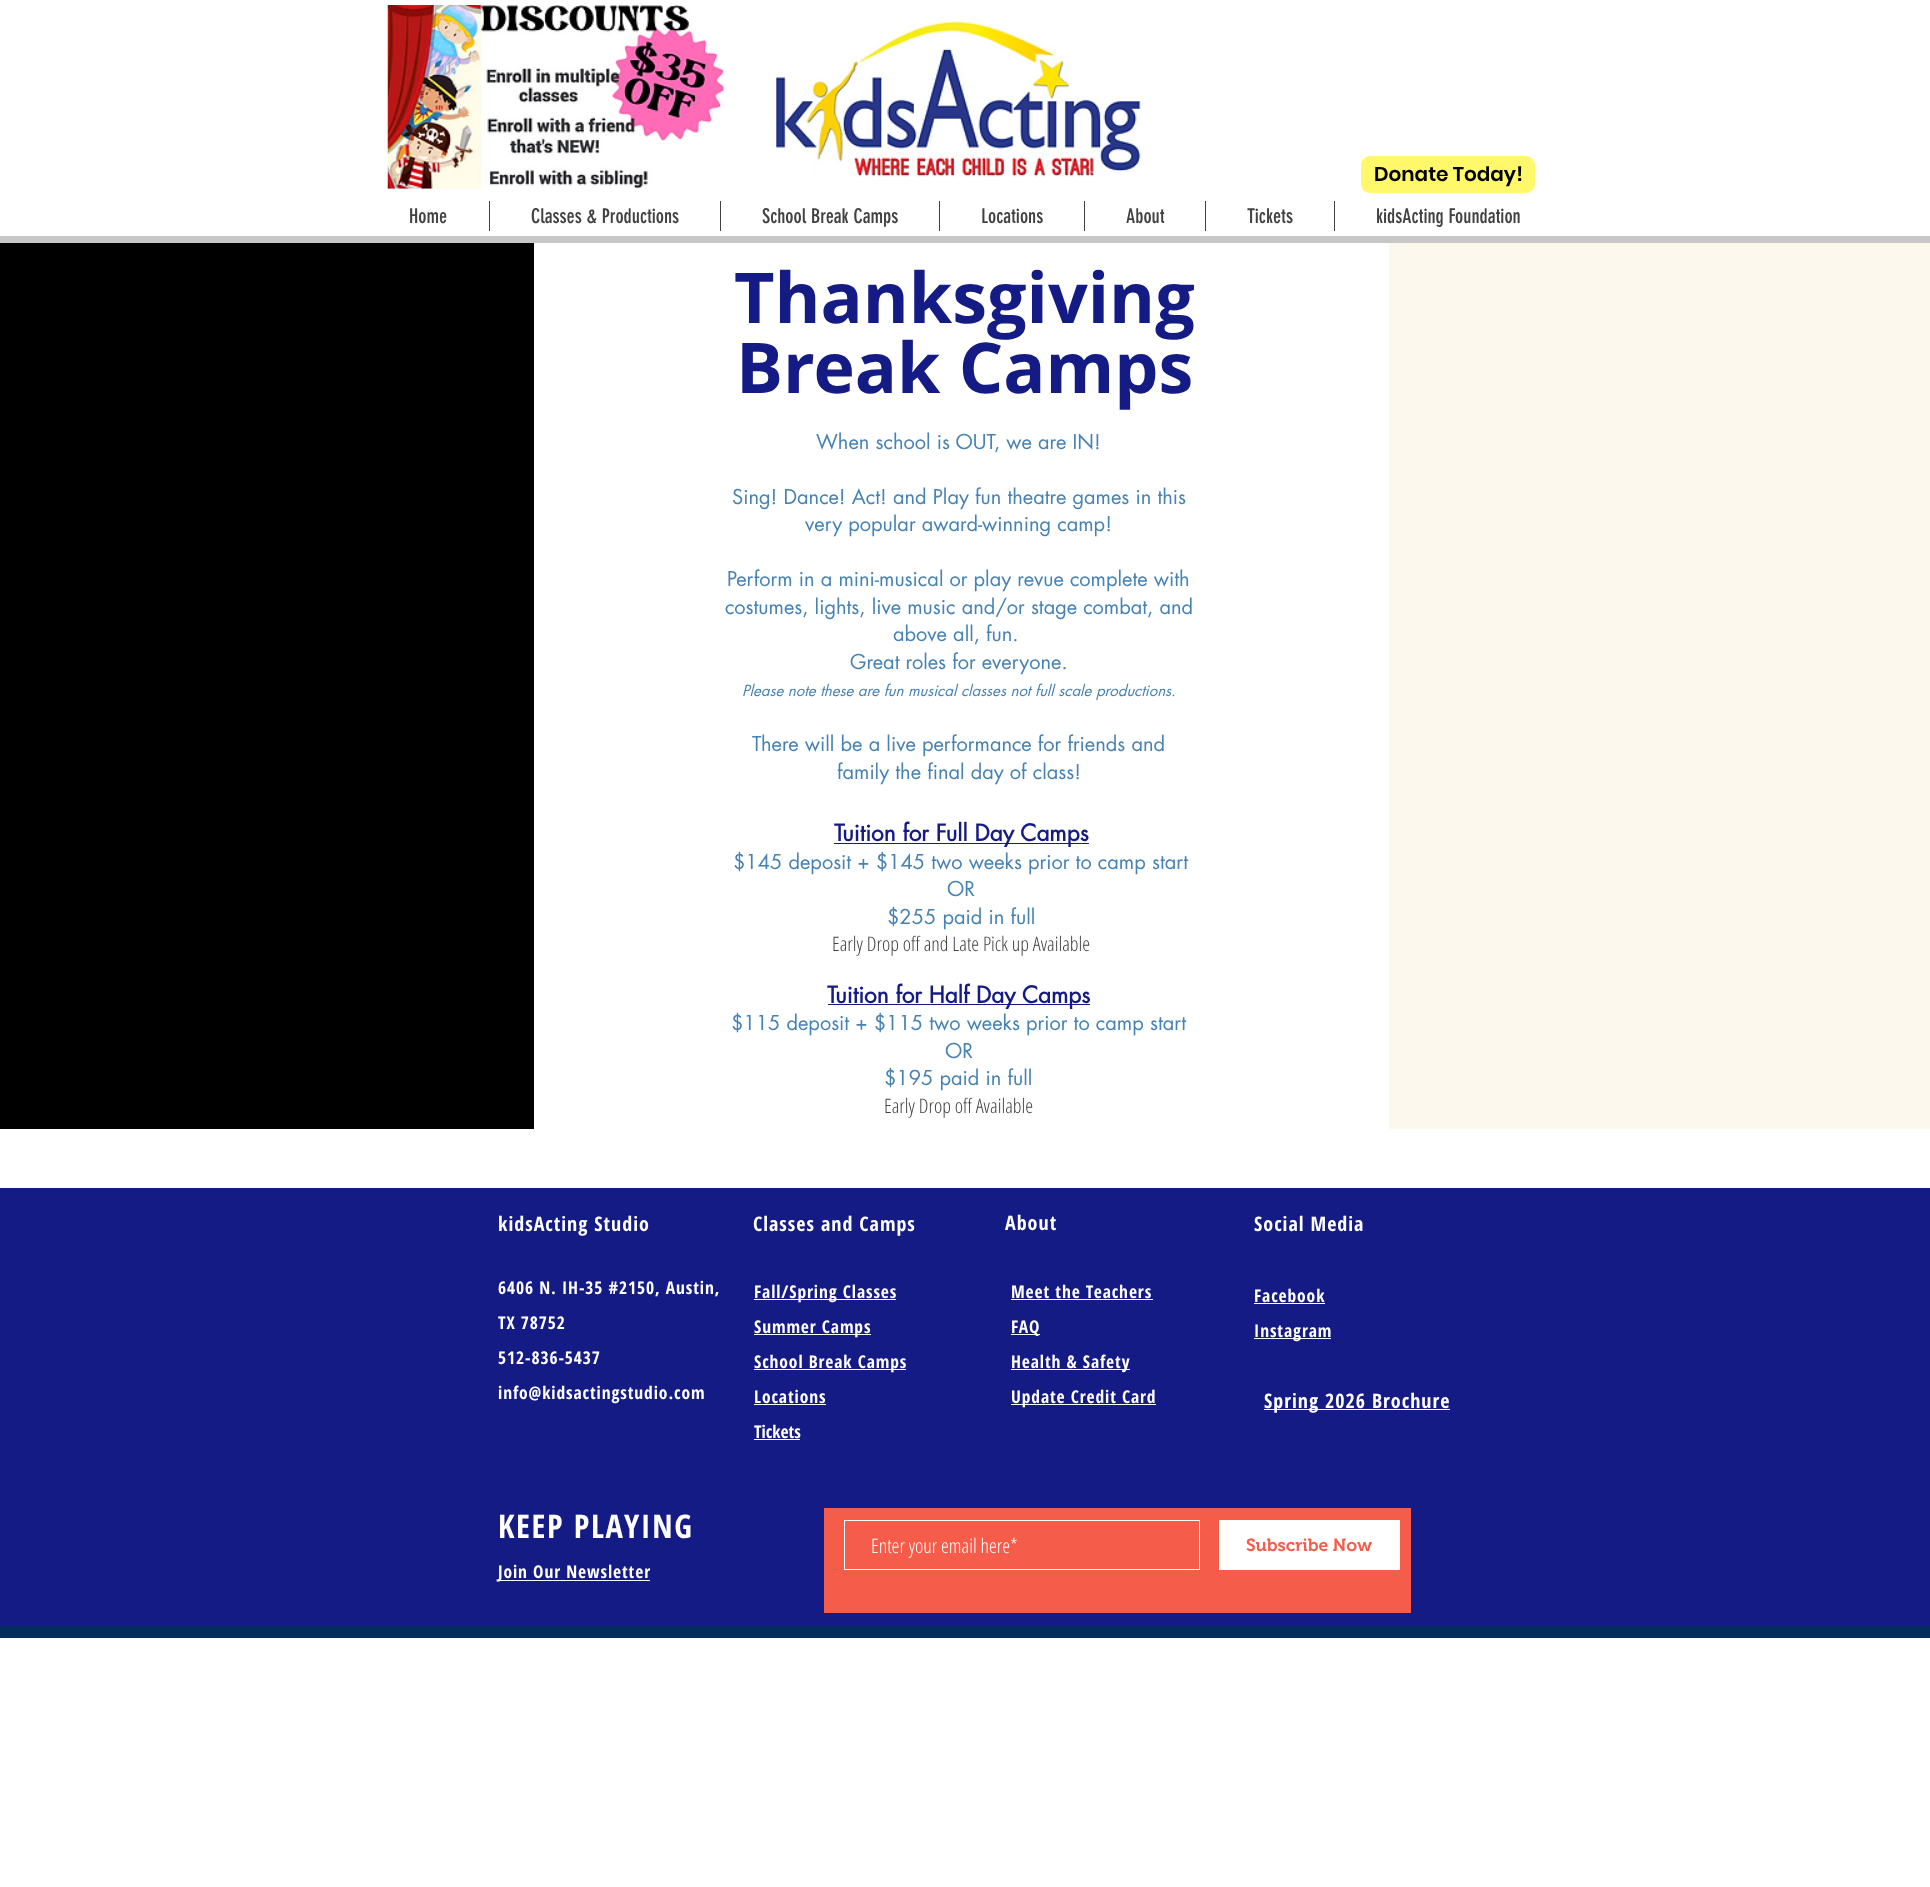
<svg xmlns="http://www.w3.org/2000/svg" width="1930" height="1887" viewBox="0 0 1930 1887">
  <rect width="100%" height="100%" fill="#ffffff"/>
  <image x="387" y="5" width="337" height="184" href="img1.png"/>
  <image x="776" y="21" width="365" height="156" href="img2.png"/>
  <rect x="1361" y="156" width="174" height="37" rx="9" fill="#fff86b"/>
  <text x="1374" y="181" font-family="Poppins" font-size="20" font-weight="600" fill="#000000">Donate Today!</text>
  <text x="409" y="223" font-family="'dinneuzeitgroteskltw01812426'" font-size="20" fill="#414141">Home</text>
  <rect x="489" y="201" width="1" height="30" fill="#414141"/>
  <text x="531" y="223" font-family="'dinneuzeitgroteskltw01812426'" font-size="20" fill="#414141">Classes &amp; Productions</text>
  <rect x="720" y="201" width="1" height="30" fill="#414141"/>
  <text x="762" y="223" font-family="'dinneuzeitgroteskltw01812426'" font-size="20" fill="#414141">School Break Camps</text>
  <rect x="939" y="201" width="1" height="30" fill="#414141"/>
  <text x="981" y="223" font-family="'dinneuzeitgroteskltw01812426'" font-size="20" fill="#414141">Locations</text>
  <rect x="1084" y="201" width="1" height="30" fill="#414141"/>
  <text x="1126" y="223" font-family="'dinneuzeitgroteskltw01812426'" font-size="20" fill="#414141">About</text>
  <rect x="1205" y="201" width="1" height="30" fill="#414141"/>
  <text x="1247" y="223" font-family="'dinneuzeitgroteskltw01812426'" font-size="20" fill="#414141">Tickets</text>
  <rect x="1334" y="201" width="1" height="30" fill="#414141"/>
  <text x="1376" y="223" font-family="'dinneuzeitgroteskltw01812426'" font-size="20" fill="#414141">kidsActing Foundation</text>
  <rect x="0" y="236" width="1930" height="7" fill="#c7c7c7"/>
  <rect x="0" y="243" width="534" height="886" fill="#000000"/>
  <text x="734" y="323" font-family="Open Sans" font-size="70" font-weight="bold" fill="#151b85">Thanksgiving</text>
  <text x="736" y="393" font-family="Open Sans" font-size="70" font-weight="bold" fill="#151b85">Break Camps</text>
  <text x="816" y="449" font-family="futura" font-size="20" fill="#4682b4">When school is OUT, we are IN!</text>
  <text x="732" y="504" font-family="futura" font-size="20" fill="#4682b4">Sing! Dance! Act! and Play fun theatre games in this</text>
  <text x="805" y="531" font-family="futura" font-size="20" fill="#4682b4">very popular award-winning camp!</text>
  <text x="727" y="586" font-family="futura" font-size="20" fill="#4682b4">Perform in a mini-musical or play revue complete with</text>
  <text x="725" y="614" font-family="futura" font-size="20" fill="#4682b4">costumes, lights, live music and/or stage combat, and</text>
  <text x="893" y="641" font-family="futura" font-size="20" fill="#4682b4">above all, fun.</text>
  <text x="850" y="669" font-family="futura" font-size="20" fill="#4682b4">Great roles for everyone.</text>
  <text x="742" y="696" font-family="futura" font-size="15" font-style="italic" fill="#4682b4">Please note these are fun musical classes not full scale productions.</text>
  <text x="752" y="751" font-family="futura" font-size="20" fill="#4682b4">There will be a live performance for friends and</text>
  <text x="837" y="779" font-family="futura" font-size="20" fill="#4682b4">family the final day of class!</text>
  <rect x="834" y="843" width="255" height="1" fill="#151b85"/>
  <text x="834" y="841" font-family="futura" font-size="22.5" font-weight="bold" fill="#151b85">Tuition for Full Day Camps</text>
  <text x="733" y="869" font-family="futura" font-size="20" fill="#4682b4">$145 deposit + $145 two weeks prior to camp start</text>
  <text x="947" y="896" font-family="futura" font-size="20" fill="#4682b4">OR</text>
  <text x="887" y="924" font-family="futura" font-size="20" fill="#4682b4">$255 paid in full</text>
  <text x="832" y="951" font-family="Open Sans Condensed" font-size="20" font-weight="300" fill="#414141">Early Drop off and Late Pick up Available</text>
  <rect x="828" y="1004" width="262" height="1" fill="#151b85"/>
  <text x="827" y="1003" font-family="futura" font-size="22.5" font-weight="bold" fill="#151b85">Tuition for Half Day Camps</text>
  <text x="731" y="1030" font-family="futura" font-size="20" fill="#4682b4">$115 deposit + $115 two weeks prior to camp start</text>
  <text x="945" y="1058" font-family="futura" font-size="20" fill="#4682b4">OR</text>
  <text x="884" y="1085" font-family="futura" font-size="20" fill="#4682b4">$195 paid in full</text>
  <text x="884" y="1113" font-family="Open Sans Condensed" font-size="20" font-weight="300" fill="#414141">Early Drop off Available</text>
  <rect x="1389" y="243" width="541" height="886" fill="#fcf8ed"/>
  <rect x="0" y="1188" width="1930" height="438" fill="#151b85"/>
  <text x="498" y="1231" font-family="Open Sans Condensed" font-size="20" font-weight="bold" letter-spacing="1" fill="#ffffff">kidsActing Studio</text>
  <text x="753" y="1231" font-family="Open Sans Condensed" font-size="20" font-weight="bold" letter-spacing="1" fill="#ffffff">Classes and Camps</text>
  <text x="1005" y="1230" font-family="Open Sans Condensed" font-size="20" font-weight="bold" letter-spacing="1" fill="#ffffff">About</text>
  <text x="1254" y="1231" font-family="Open Sans Condensed" font-size="20" font-weight="bold" letter-spacing="1" fill="#ffffff">Social Media</text>
  <text x="498" y="1294" font-family="Open Sans Condensed" font-size="17.5" font-weight="bold" letter-spacing="0.9" fill="#ffffff">6406 N. IH-35 #2150, Austin,</text>
  <text x="498" y="1329" font-family="Open Sans Condensed" font-size="17.5" font-weight="bold" letter-spacing="0.9" fill="#ffffff">TX 78752</text>
  <text x="498" y="1364" font-family="Open Sans Condensed" font-size="17.5" font-weight="bold" letter-spacing="0.9" fill="#ffffff">512-836-5437</text>
  <text x="498" y="1399" font-family="Open Sans Condensed" font-size="17.5" font-weight="bold" letter-spacing="0.9" fill="#ffffff">info@kidsactingstudio.com</text>
  <rect x="754" y="1299" width="142" height="1" fill="#ffffff"/>
  <text x="754" y="1298" font-family="Open Sans Condensed" font-size="17.5" font-weight="bold" letter-spacing="0.9" fill="#ffffff">Fall/Spring Classes</text>
  <rect x="754" y="1334" width="117" height="1" fill="#ffffff"/>
  <text x="754" y="1333" font-family="Open Sans Condensed" font-size="17.5" font-weight="bold" letter-spacing="0.9" fill="#ffffff">Summer Camps</text>
  <rect x="754" y="1369" width="152" height="1" fill="#ffffff"/>
  <text x="754" y="1368" font-family="Open Sans Condensed" font-size="17.5" font-weight="bold" letter-spacing="0.9" fill="#ffffff">School Break Camps</text>
  <text x="754" y="1403" font-family="Open Sans Condensed" font-size="17.5" font-weight="bold" letter-spacing="0.9" fill="#ffffff">Locations</text>
  <rect x="754" y="1404" width="72" height="1" fill="#ffffff"/>
  <text x="754" y="1438" font-family="Open Sans Condensed" font-size="17.5" font-weight="bold" fill="#ffffff">Tickets</text>
  <rect x="754" y="1439" width="46" height="1" fill="#ffffff"/>
  <text x="1011" y="1298" font-family="Open Sans Condensed" font-size="17.5" font-weight="bold" letter-spacing="0.9" fill="#ffffff">Meet the Teachers</text>
  <rect x="1011" y="1299" width="142" height="1" fill="#ffffff"/>
  <rect x="1011" y="1334" width="29" height="1" fill="#ffffff"/>
  <text x="1011" y="1333" font-family="Open Sans Condensed" font-size="17.5" font-weight="bold" letter-spacing="0.9" fill="#ffffff">FAQ</text>
  <rect x="1011" y="1369" width="119" height="1" fill="#ffffff"/>
  <text x="1011" y="1368" font-family="Open Sans Condensed" font-size="17.5" font-weight="bold" letter-spacing="0.9" fill="#ffffff">Health &amp; Safety</text>
  <rect x="1011" y="1404" width="145" height="1" fill="#ffffff"/>
  <text x="1011" y="1403" font-family="Open Sans Condensed" font-size="17.5" font-weight="bold" letter-spacing="0.9" fill="#ffffff">Update Credit Card</text>
  <text x="1254" y="1302" font-family="Open Sans Condensed" font-size="17.5" font-weight="bold" letter-spacing="0.9" fill="#ffffff">Facebook</text>
  <rect x="1254" y="1303" width="71" height="1" fill="#ffffff"/>
  <rect x="1254" y="1338" width="77" height="1" fill="#ffffff"/>
  <text x="1254" y="1337" font-family="Open Sans Condensed" font-size="17.5" font-weight="bold" letter-spacing="0.9" fill="#ffffff">Instagram</text>
  <rect x="1264" y="1409" width="186" height="1" fill="#ffffff"/>
  <text x="1264" y="1408" font-family="Open Sans Condensed" font-size="20" font-weight="bold" letter-spacing="1" fill="#ffffff">Spring 2026 Brochure</text>
  <text x="498" y="1538" font-family="Open Sans Condensed" font-size="32.5" font-weight="bold" letter-spacing="1.6" fill="#ffffff">KEEP PLAYING</text>
  <rect x="824" y="1508" width="587" height="105" fill="#f55c4a"/>
  <rect x="844.5" y="1520.5" width="355" height="49" fill="none" stroke="#ffffff"/>
  <text x="871" y="1553" font-family="Open Sans Condensed" font-size="20" font-weight="300" fill="#ffffff">Enter your email here*</text>
  <rect x="1219" y="1520" width="181" height="50" fill="#ffffff"/>
  <text x="1246" y="1551" font-family="'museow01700'" font-size="17.5" font-weight="600" fill="#f55c4a">Subscribe Now</text>
  <rect x="498" y="1580" width="152" height="1" fill="#ffffff"/>
  <text x="498" y="1578" font-family="Open Sans Condensed" font-size="17.5" font-weight="bold" letter-spacing="0.9" fill="#ffffff">Join Our Newsletter</text>
  <rect x="0" y="1626" width="1930" height="12" fill="#002e5d"/>
</svg>
